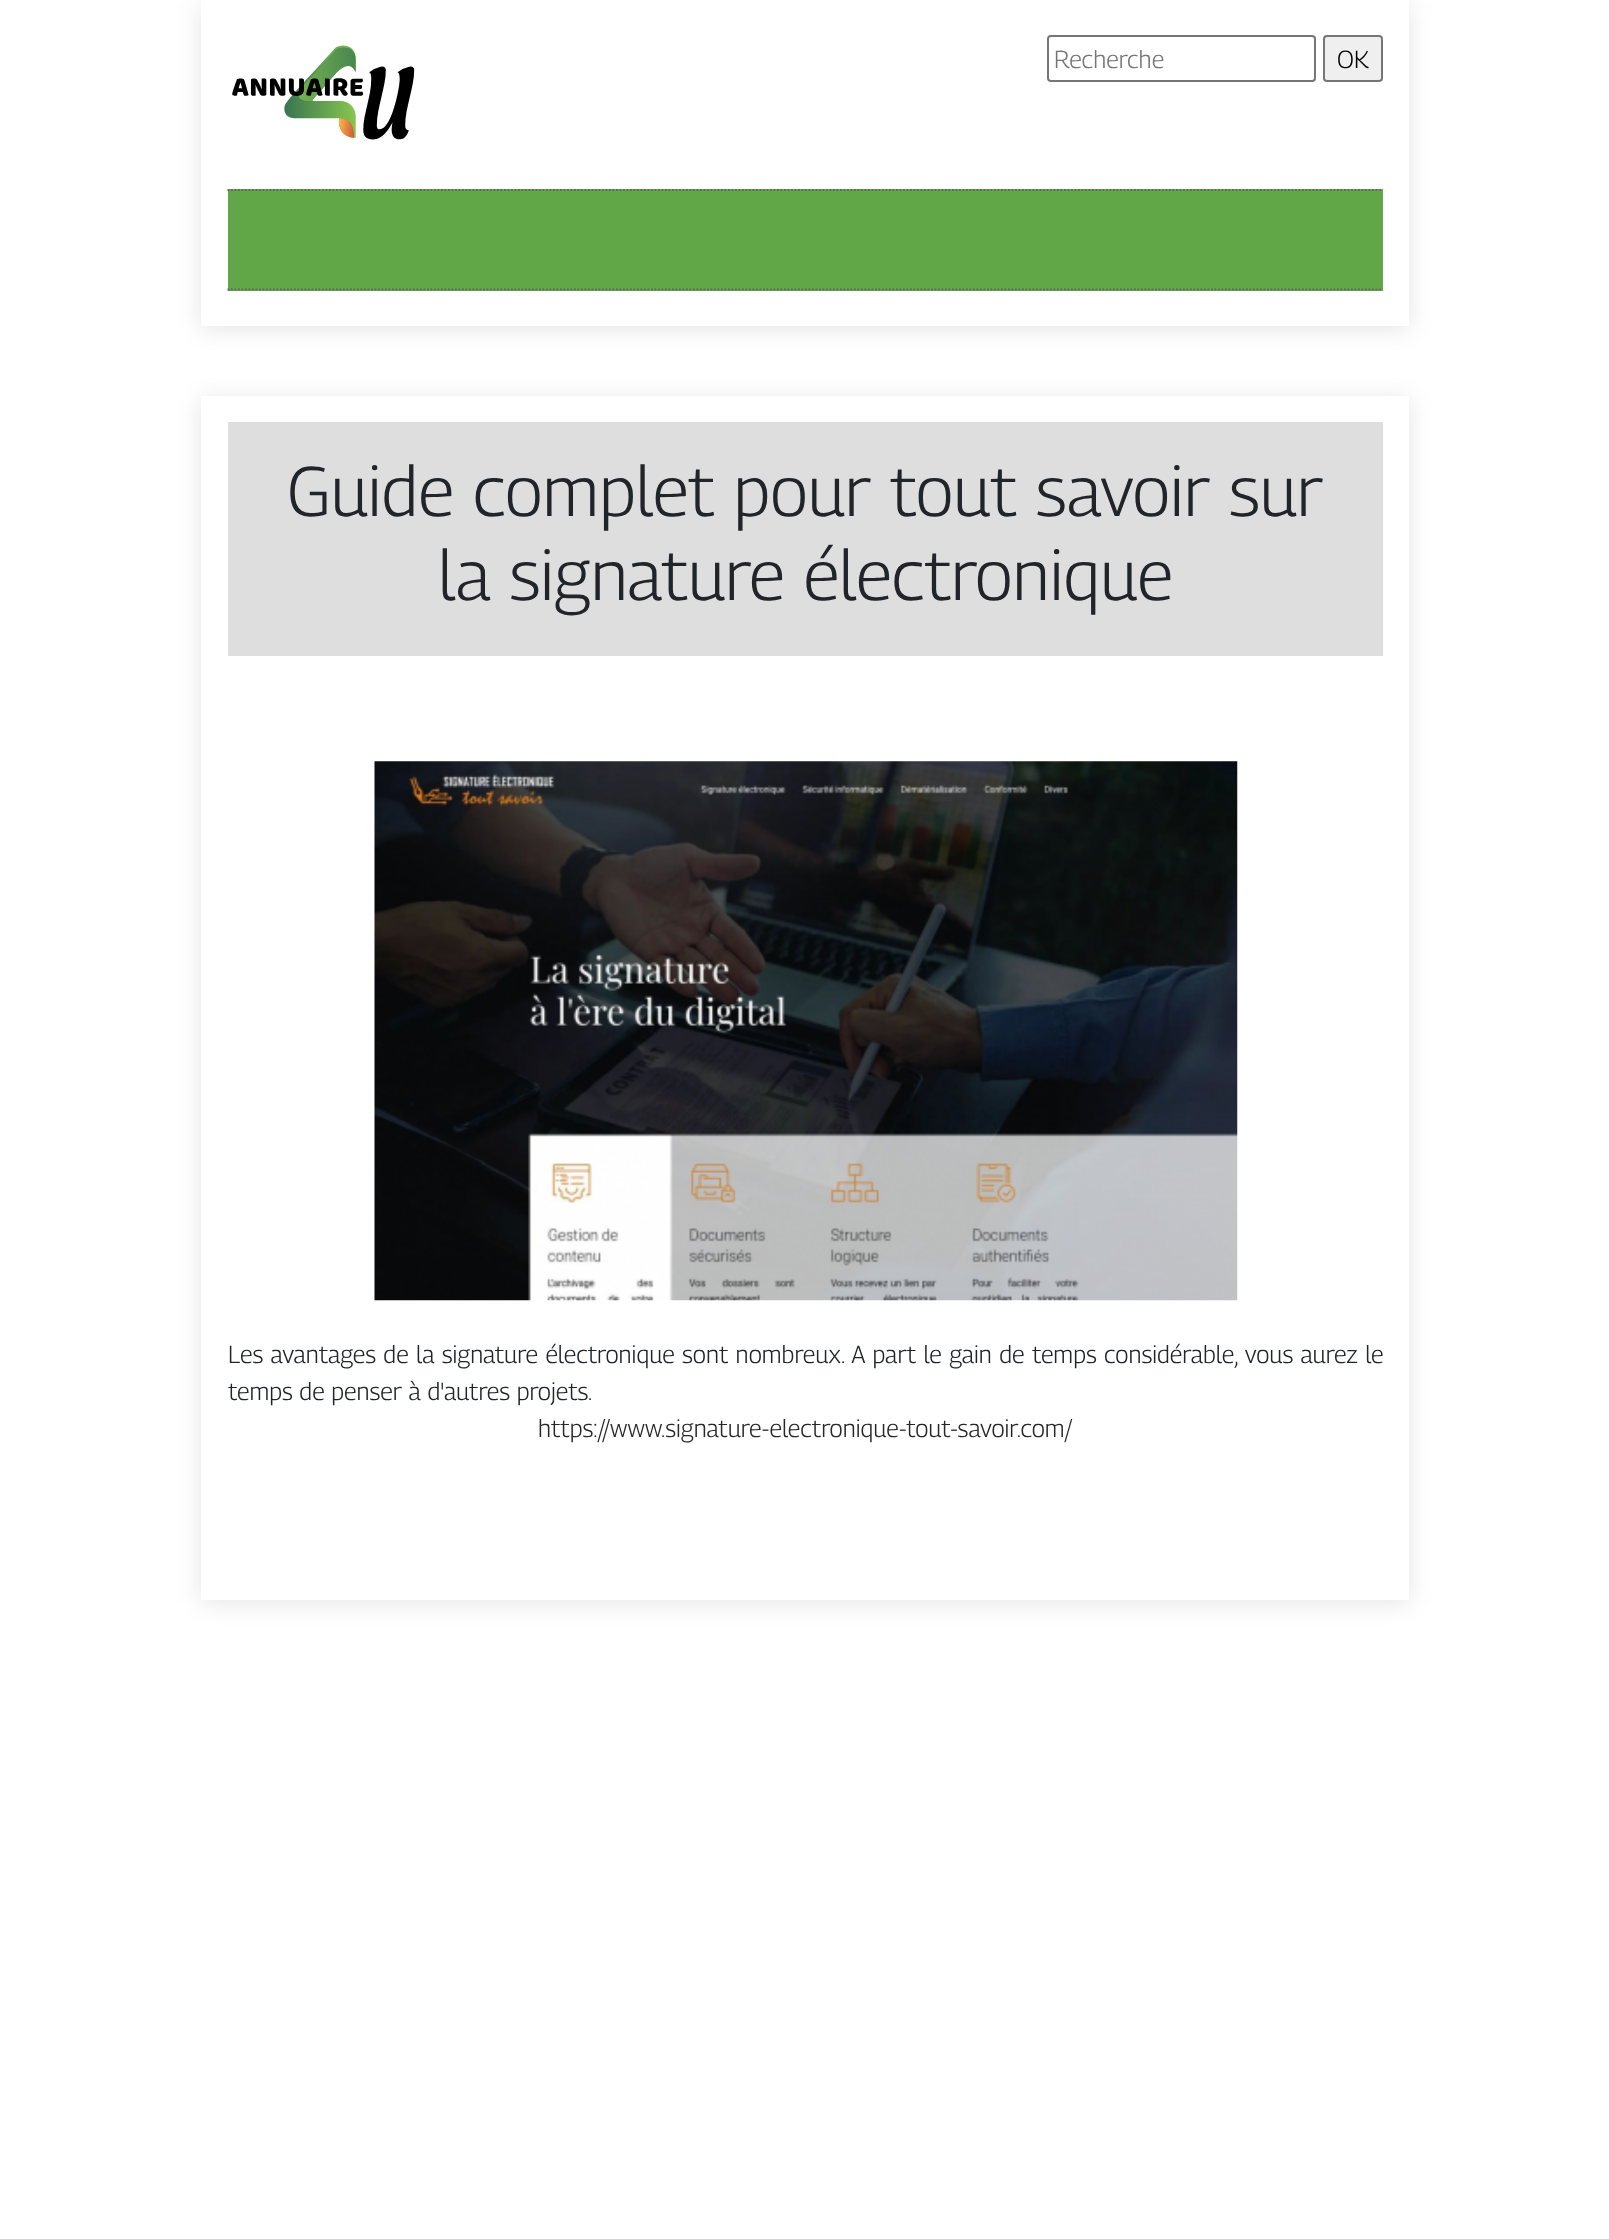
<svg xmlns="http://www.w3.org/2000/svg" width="1609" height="2239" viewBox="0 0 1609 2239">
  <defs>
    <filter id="blur1" x="-50%" y="-200%" width="200%" height="500%"><feGaussianBlur stdDeviation="11.5"/></filter>
  </defs>
  <rect width="100%" height="100%" fill="#ffffff"/>
  <rect x="201" y="4" width="1208" height="325" fill="#000000" fill-opacity="0.1" filter="url(#blur1)"/>
  <rect x="201" y="0" width="1208" height="326" fill="#ffffff"/>
  <image x="232" y="45" width="183" height="95" href="img1.png"/>
  <rect x="1048" y="36" width="267" height="45" rx="3" fill="none" stroke="#767676" stroke-width="2"/>
  <text x="1054" y="68" font-family="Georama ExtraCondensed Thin" font-size="24.5" font-weight="100" fill="#757575">Recherche</text>
  <rect x="1324" y="36" width="58" height="45" rx="3" fill="#efefef" stroke="#767676" stroke-width="2"/>
  <text x="1337" y="68" font-family="Georama ExtraCondensed Thin" font-size="24.5" font-weight="100" fill="#000000">OK</text>
  <rect x="228" y="189" width="1155" height="102" fill="#61a647"/>
  <path d="M227.5 190H1382.5" fill="none" stroke="#666666" stroke-width="1.8" stroke-dasharray="1.75 1.75"/>
  <path d="M227.5 289.5H1382.5" fill="none" stroke="#666666" stroke-width="1.8" stroke-dasharray="1.75 1.75"/>
  <rect x="201" y="399" width="1208" height="1204" fill="#000000" fill-opacity="0.1" filter="url(#blur1)"/>
  <rect x="201" y="396" width="1208" height="1204" fill="#ffffff"/>
  <rect x="228" y="422" width="1155" height="234" fill="#dedede"/>
  <text x="287" y="516" font-family="Georama ExtraCondensed Thin" font-size="70" font-weight="100" fill="#212529">Guide complet pour tout savoir sur</text>
  <text x="438" y="600" font-family="Georama ExtraCondensed Thin" font-size="70" font-weight="100" fill="#212529">la signature électronique</text>
  <image x="374" y="761" width="864" height="540" href="img2.png"/>
  <text x="228" y="1363" word-spacing="0.75" font-family="Georama ExtraCondensed Thin" font-size="24.5" font-weight="100" fill="#212529">Les avantages de la signature électronique sont nombreux. A part le gain de temps considérable, vous aurez le</text>
  <text x="228" y="1400" font-family="Georama ExtraCondensed Thin" font-size="24.5" font-weight="100" fill="#212529">temps de penser à d'autres projets.</text>
  <text x="538" y="1437" font-family="Georama ExtraCondensed Thin" font-size="24.5" font-weight="100" fill="#272727">https://www.signature-electronique-tout-savoir.com/</text>
</svg>
